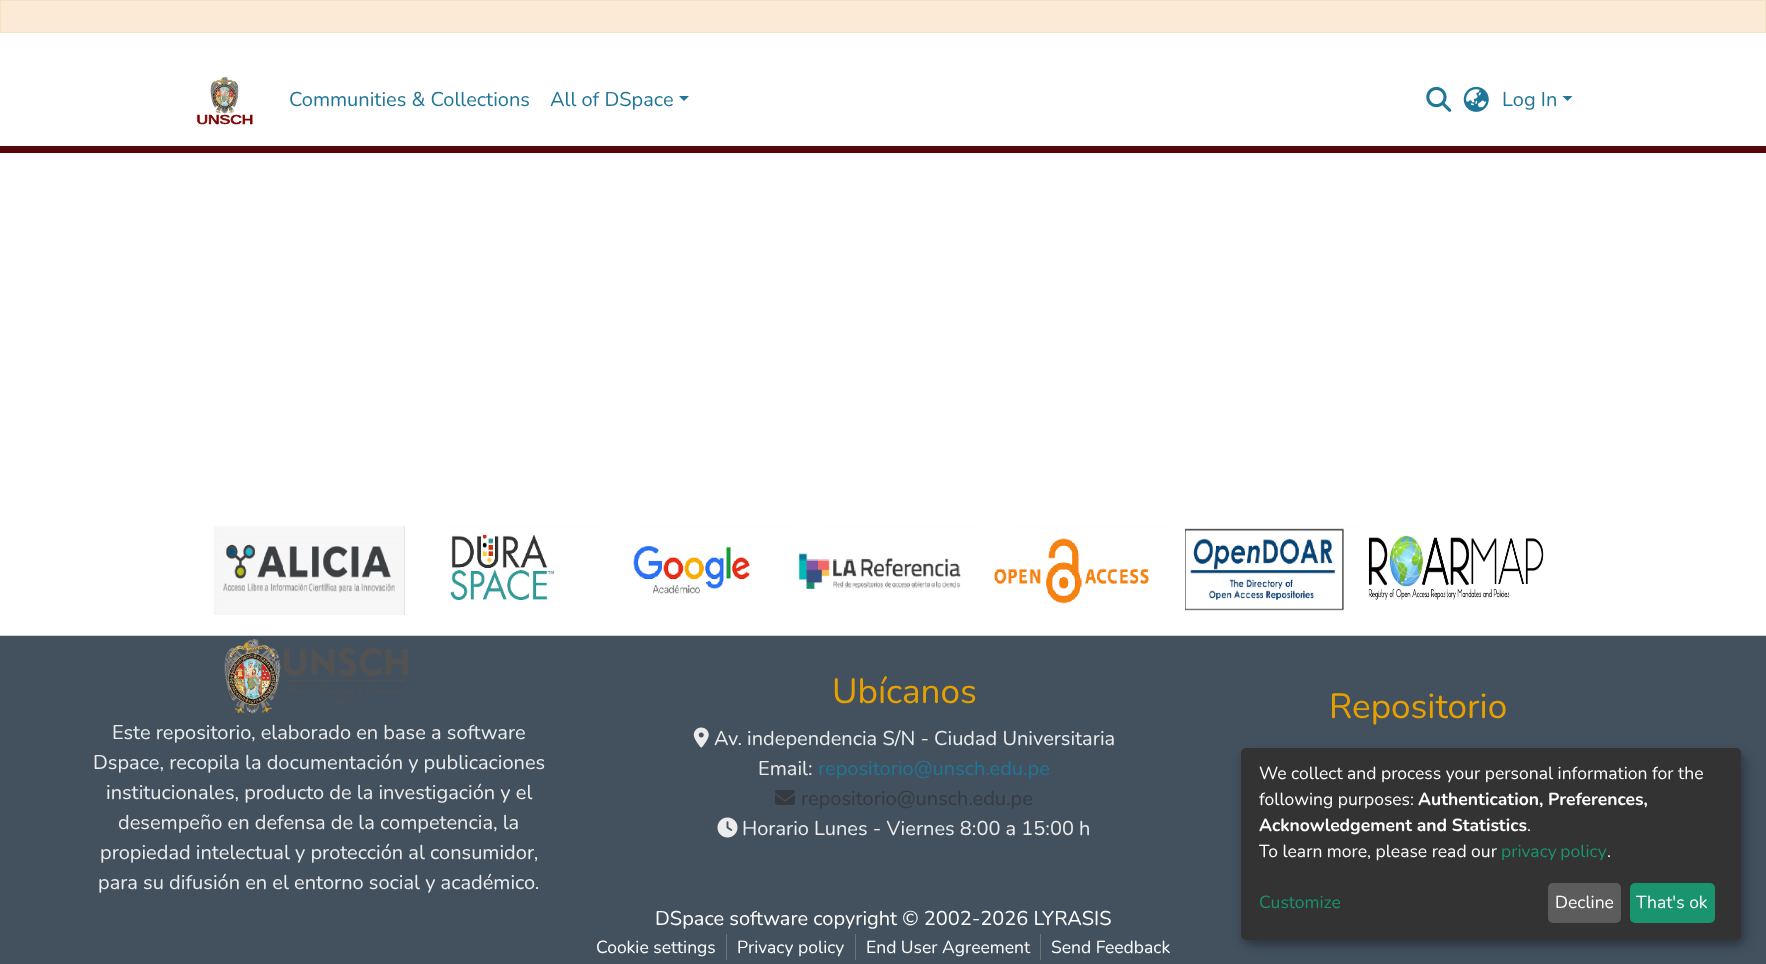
<svg xmlns="http://www.w3.org/2000/svg" width="1766" height="964" viewBox="0 0 1766 964">
  <defs>
    <filter id="blur1" x="-50%" y="-200%" width="200%" height="500%"><feGaussianBlur stdDeviation="6"/></filter>
    <filter id="blur2" x="-50%" y="-200%" width="200%" height="500%"><feGaussianBlur stdDeviation="4"/></filter>
  </defs>
  <rect width="100%" height="100%" fill="#ffffff"/>
  <rect x="0.5" y="0.5" width="1765" height="32" fill="#fbead6" stroke="#fae1c6"/>
  <rect x="0" y="146" width="1766" height="7" fill="#56070c"/>
  <image x="197" y="77" width="56" height="48" href="img1.png"/>
  <text x="289" y="106" font-family="Nunito" font-size="20" fill="#207698">Communities &amp; Collections</text>
  <text x="550" y="106" font-family="Nunito" font-size="20" fill="#207698">All of DSpace</text>
  <path d="M679 96H689L684 101Z" fill="#207698"/>
  <image x="1426" y="86" width="26" height="26" href="img2.png"/>
  <image x="1463" y="86" width="26" height="26" href="img3.png"/>
  <text x="1502" y="106" font-family="Nunito" font-size="20" fill="#207698">Log In</text>
  <path d="M1562.5 96H1572.5L1567.5 101Z" fill="#207698"/>
  <image x="213" y="526" width="192" height="89" href="img4.png"/>
  <image x="450" y="526" width="146" height="74" href="img5.png"/>
  <image x="633" y="526" width="155" height="68" href="img6.png"/>
  <image x="799" y="526" width="180" height="63" href="img7.png"/>
  <image x="994" y="526" width="176" height="78" href="img8.png"/>
  <image x="1185" y="526" width="176" height="85" href="img9.png"/>
  <image x="1368" y="536" width="176" height="64" href="img10.png"/>
  <rect x="0" y="636" width="1766" height="328" fill="#43515f"/>
  <rect x="0" y="635" width="1766" height="1" fill="#ced4da"/>
  <text x="832" y="703" font-family="Nunito" font-size="35" fill="#e6a000">Ubícanos</text>
  <image x="693" y="727" width="16" height="21" href="img11.png"/>
  <text x="714" y="745" font-family="Nunito" font-size="20" fill="#ececec">Av. independencia S/N - Ciudad Universitaria</text>
  <text x="758" y="775" font-family="Nunito" font-size="20" fill="#ececec">Email:</text>
  <text x="818" y="775" font-family="Nunito" font-size="20" fill="#207698">repositorio@unsch.edu.pe</text>
  <image x="775" y="790" width="20" height="15" href="img12.png"/>
  <text x="801" y="805" font-family="Nunito" font-size="20" fill="#343a40">repositorio@unsch.edu.pe</text>
  <image x="717" y="817" width="21" height="21" href="img13.png"/>
  <text x="742" y="835" font-family="Nunito" font-size="20" fill="#ececec">Horario Lunes - Viernes 8:00 a 15:00 h</text>
  <text x="1329" y="718" font-family="Nunito" font-size="35" fill="#e6a000">Repositorio</text>
  <image x="224" y="638" width="185" height="76" href="img14.png"/>
  <text x="112" y="739" font-family="Nunito" font-size="20" fill="#ececec">Este repositorio, elaborado en base a software</text>
  <text x="93" y="769" font-family="Nunito" font-size="20" fill="#ececec">Dspace, recopila la documentación y publicaciones</text>
  <text x="106" y="799" font-family="Nunito" font-size="20" fill="#ececec">institucionales, producto de la investigación y el</text>
  <text x="118" y="829" font-family="Nunito" font-size="20" fill="#ececec">desempeño en defensa de la competencia, la</text>
  <text x="100" y="859" font-family="Nunito" font-size="20" fill="#ececec">propiedad intelectual y protección al consumidor,</text>
  <text x="98" y="889" font-family="Nunito" font-size="20" fill="#ececec">para su difusión en el entorno social y académico.</text>
  <text x="655" y="925" font-family="Nunito" font-size="20" fill="#ffffff">DSpace software copyright © 2002-2026 LYRASIS</text>
  <text x="596" y="953" font-family="Nunito" font-size="17.5" fill="#ffffff">Cookie settings</text>
  <rect x="726" y="934" width="1" height="26" fill="#6c757d"/>
  <text x="737" y="953" font-family="Nunito" font-size="17.5" fill="#ffffff">Privacy policy</text>
  <rect x="855" y="934" width="1" height="26" fill="#6c757d"/>
  <text x="866" y="953" font-family="Nunito" font-size="17.5" fill="#ffffff">End User Agreement</text>
  <rect x="1040" y="934" width="1" height="26" fill="#6c757d"/>
  <text x="1051" y="953" font-family="Nunito" font-size="17.5" fill="#ffffff">Send Feedback</text>
  <rect x="1248" y="754" width="500" height="192" rx="5" fill="#000000" fill-opacity="0.19" filter="url(#blur1)"/>
  <rect x="1241" y="753" width="500" height="192" rx="5" fill="#000000" fill-opacity="0.2" filter="url(#blur2)"/>
  <rect x="1241" y="748" width="500" height="192" rx="5" fill="#333333"/>
  <text x="1259" y="779" font-family="Nunito" font-size="17.5" fill="#ffffff">We collect and process your personal information for the</text>
  <text x="1259" y="805" font-family="Nunito" font-size="17.5" fill="#ffffff">following purposes:</text>
  <text x="1418" y="805" font-family="Nunito" font-size="17.5" font-weight="bold" fill="#ffffff">Authentication, Preferences,</text>
  <text x="1259" y="831" font-family="Nunito" font-size="17.5" font-weight="bold" fill="#ffffff">Acknowledgement and Statistics</text>
  <text x="1527" y="831" font-family="Nunito" font-size="17.5" fill="#ffffff">.</text>
  <text x="1259" y="857" font-family="Nunito" font-size="17.5" fill="#ffffff">To learn more, please read our</text>
  <text x="1501" y="857" word-spacing="-1" font-family="Nunito" font-size="17.5" fill="#1a936f">privacy policy</text>
  <text x="1607" y="857" font-family="Nunito" font-size="17.5" fill="#ffffff">.</text>
  <text x="1259" y="908" font-family="Nunito" font-size="17.5" fill="#1a936f">Customize</text>
  <rect x="1548" y="883" width="73" height="40" rx="5" fill="#5c5c5c"/>
  <text x="1555" y="908" font-family="Nunito" font-size="17.5" fill="#ffffff">Decline</text>
  <rect x="1630" y="883" width="85" height="40" rx="5" fill="#1a936f"/>
  <text x="1636" y="908" font-family="Nunito" font-size="17.5" fill="#ffffff">That's ok</text>
</svg>
